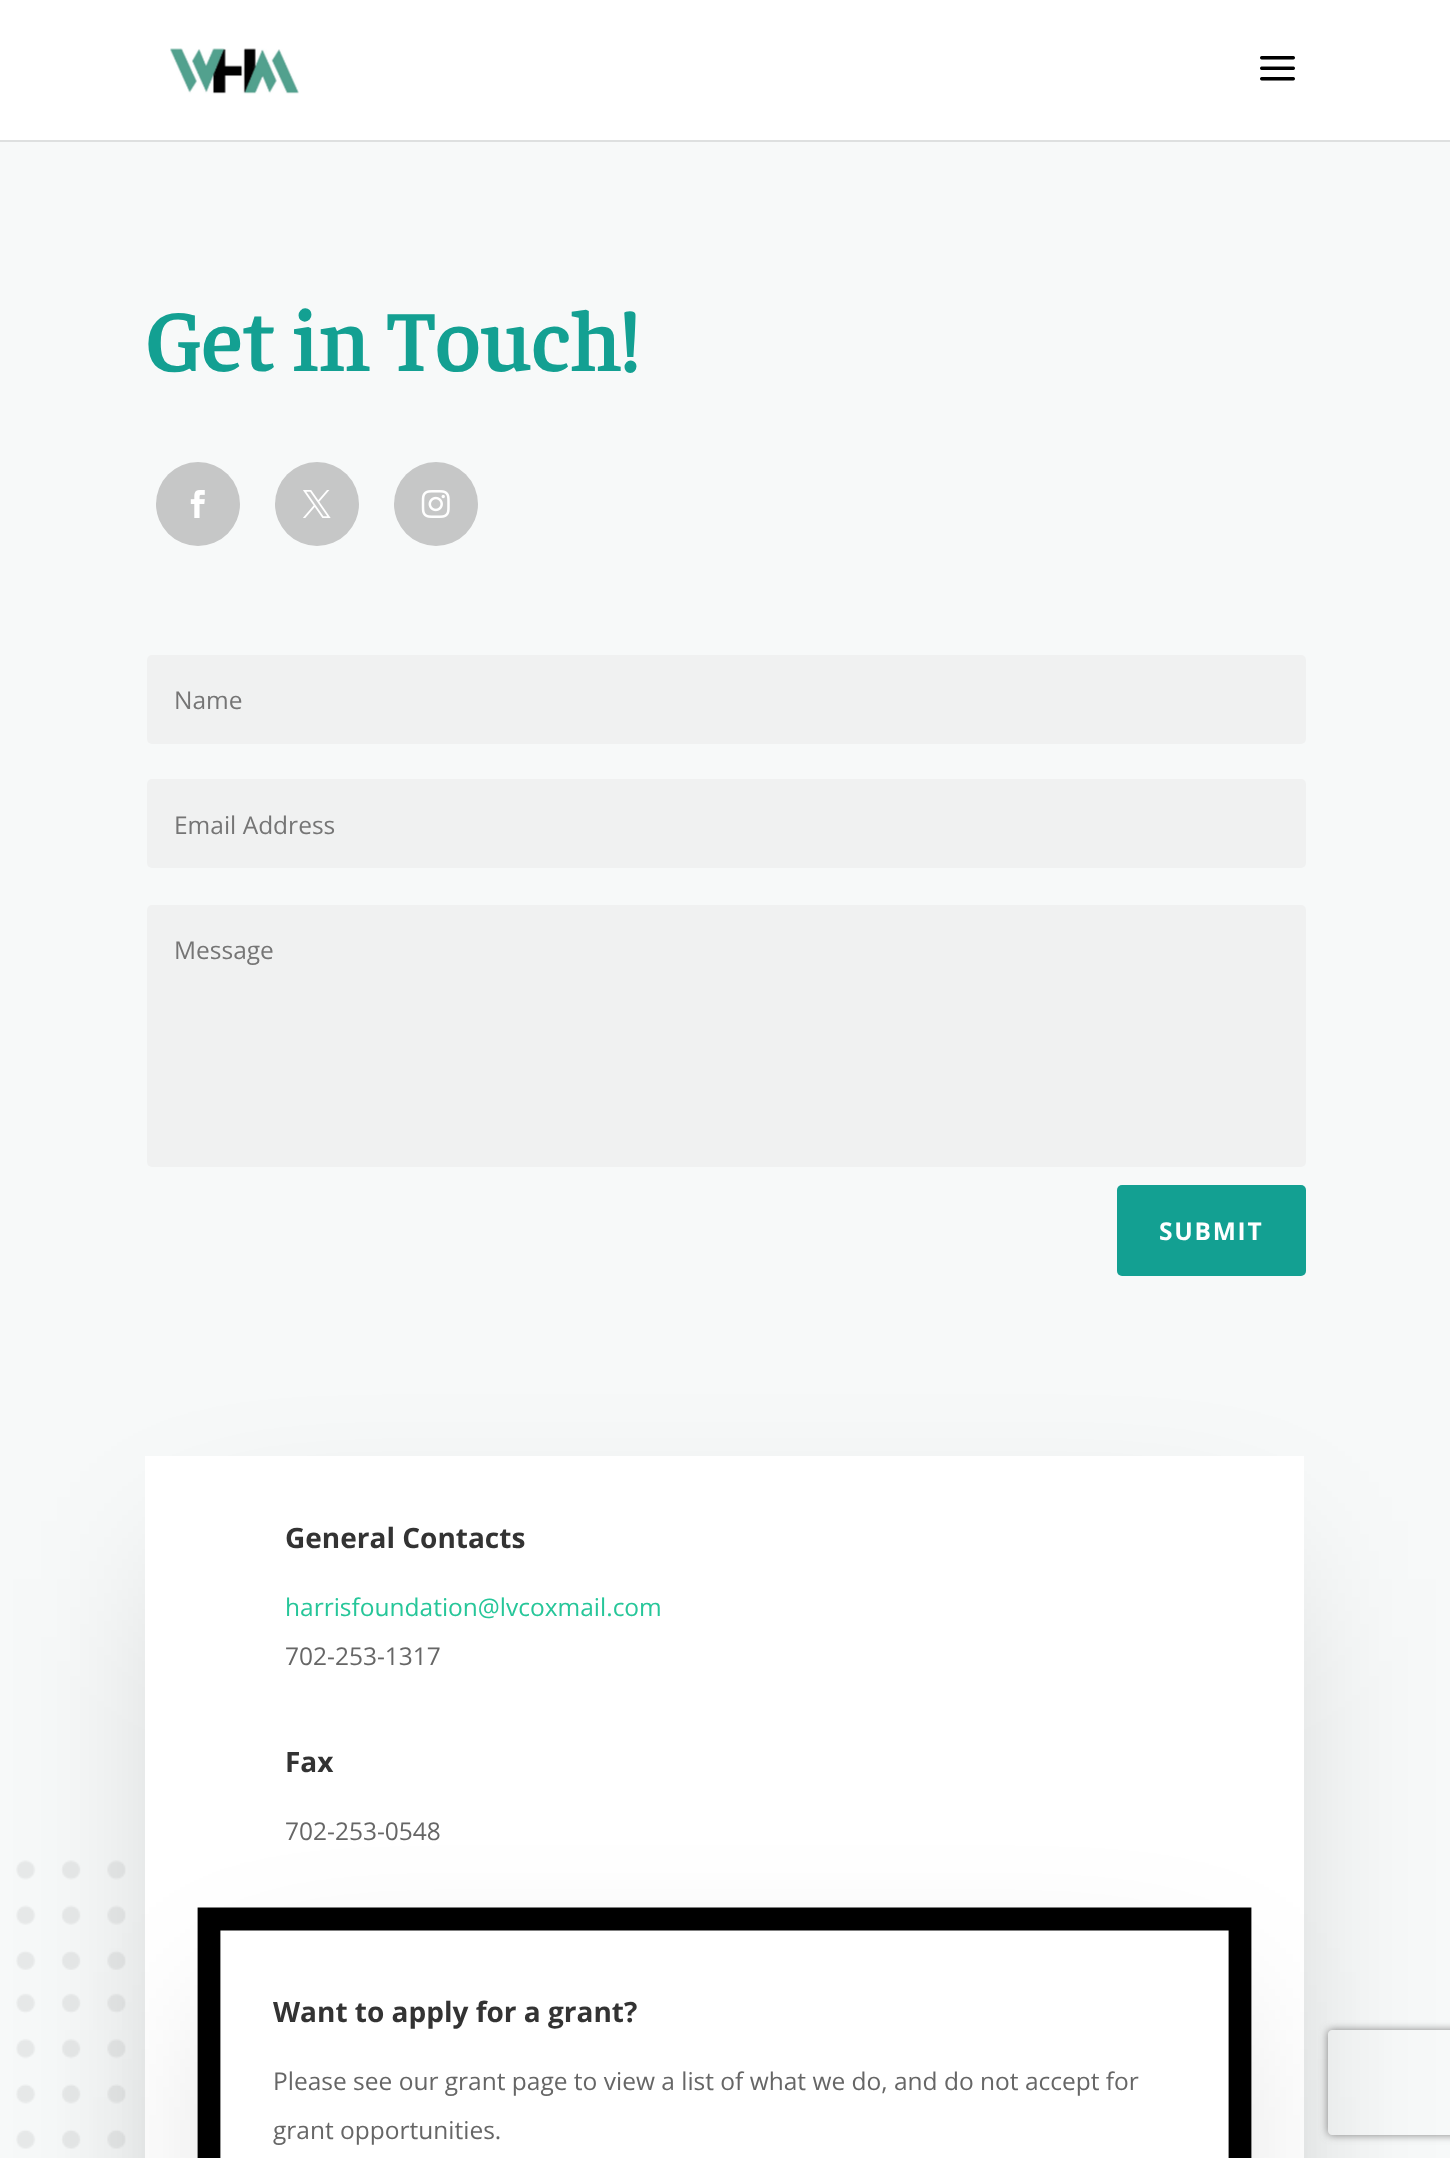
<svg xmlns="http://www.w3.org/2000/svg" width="1450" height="2158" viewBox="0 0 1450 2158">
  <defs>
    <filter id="blur1" x="-50%" y="-200%" width="200%" height="500%"><feGaussianBlur stdDeviation="87.5"/></filter>
    <clipPath id="clip1"><path d="M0 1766H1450V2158H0ZM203 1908H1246C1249 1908 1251 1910 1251 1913V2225C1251 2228 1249 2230 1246 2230H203C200 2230 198 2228 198 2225V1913C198 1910 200 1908 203 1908Z" clip-rule="evenodd"/></clipPath>
    <clipPath id="clip2"><path d="M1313 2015H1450V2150H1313ZM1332 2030H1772C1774 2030 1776 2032 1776 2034V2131C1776 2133 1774 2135 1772 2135H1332C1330 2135 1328 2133 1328 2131V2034C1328 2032 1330 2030 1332 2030Z" clip-rule="evenodd"/></clipPath>
    <filter id="blur2" x="-50%" y="-200%" width="200%" height="500%"><feGaussianBlur stdDeviation="4.5"/></filter>
  </defs>
  <rect width="100%" height="100%" fill="#f7f9f9"/>
  <path d="M0 140V142H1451V2V140Z" fill="#dee0e0"/>
  <rect x="0" y="0" width="1450" height="140" fill="#ffffff"/>
  <image x="170" y="48" width="129" height="46" href="img1.png"/>
  <image x="1260" y="56" width="35" height="25" href="img2.png"/>
  <text x="145" y="371" font-family="Faustina" font-size="87.5" font-weight="600" fill="#13a092">Get in Touch!</text>
  <circle cx="198" cy="504" r="42" fill="#c6c7c7"/>
  <image x="190" y="490" width="15" height="28" href="img3.png"/>
  <circle cx="317" cy="504" r="42" fill="#c6c7c7"/>
  <image x="303" y="490" width="28" height="28" href="img4.png"/>
  <circle cx="436" cy="504" r="42" fill="#c6c7c7"/>
  <image x="421" y="490" width="29" height="28" href="img5.png"/>
  <rect x="147" y="655" width="1159" height="89" rx="5" fill="#f0f1f1"/>
  <text x="174" y="709" font-family="Open Sans" font-size="24.5" fill="#757575">Name</text>
  <rect x="147" y="779" width="1159" height="89" rx="5" fill="#f0f1f1"/>
  <text x="174" y="834" font-family="Open Sans" font-size="24.5" fill="#757575">Email Address</text>
  <rect x="147" y="905" width="1159" height="262" rx="5" fill="#f0f1f1"/>
  <text x="174" y="959" font-family="Open Sans" font-size="24.5" fill="#757575">Message</text>
  <rect x="1117" y="1185" width="189" height="91" rx="5" fill="#13a092"/>
  <text x="1159" y="1240" font-family="Open Sans" font-size="24.5" font-weight="bold" letter-spacing="1.75" fill="#ffffff">SUBMIT</text>
  <image x="16" y="1860" width="110" height="289" href="img6.png"/>
  <rect x="198" y="1579" width="1053" height="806" fill="#000000" fill-opacity="0.22" filter="url(#blur1)"/>
  <rect x="145" y="1456" width="1159" height="702" fill="#ffffff"/>
  <text x="285" y="1548" font-family="Open Sans" font-size="28" font-weight="bold" fill="#333333">General Contacts</text>
  <text x="285" y="1616" font-family="Open Sans" font-size="24.5" fill="#26c699">harrisfoundation@lvcoxmail.com</text>
  <text x="285" y="1665" font-family="Open Sans" font-size="24.5" fill="#666666">702-253-1317</text>
  <text x="285" y="1772" font-family="Open Sans" font-size="28" font-weight="bold" fill="#333333">Fax</text>
  <text x="285" y="1840" font-family="Open Sans" font-size="24.5" fill="#666666">702-253-0548</text>
  <g clip-path="url(#clip1)">
    <rect x="250" y="2030" width="949" height="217" fill="#000000" fill-opacity="0.22" filter="url(#blur1)"/>
  </g>
  <path d="M209 1919H1240V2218H209Z" fill="none" stroke="#000000" stroke-width="22.8"/>
  <text x="273" y="2022" font-family="Open Sans" font-size="28" font-weight="bold" fill="#333333">Want to apply for a grant?</text>
  <text x="273" y="2090" font-family="Open Sans" font-size="24.5" fill="#666666">Please see our grant page to view a list of what we do, and do not accept for</text>
  <text x="273" y="2139" font-family="Open Sans" font-size="24.5" fill="#666666">grant opportunities.</text>
  <g clip-path="url(#clip2)">
    <rect x="1328" y="2030" width="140" height="105" rx="4" fill="#808080" filter="url(#blur2)"/>
  </g>
</svg>
